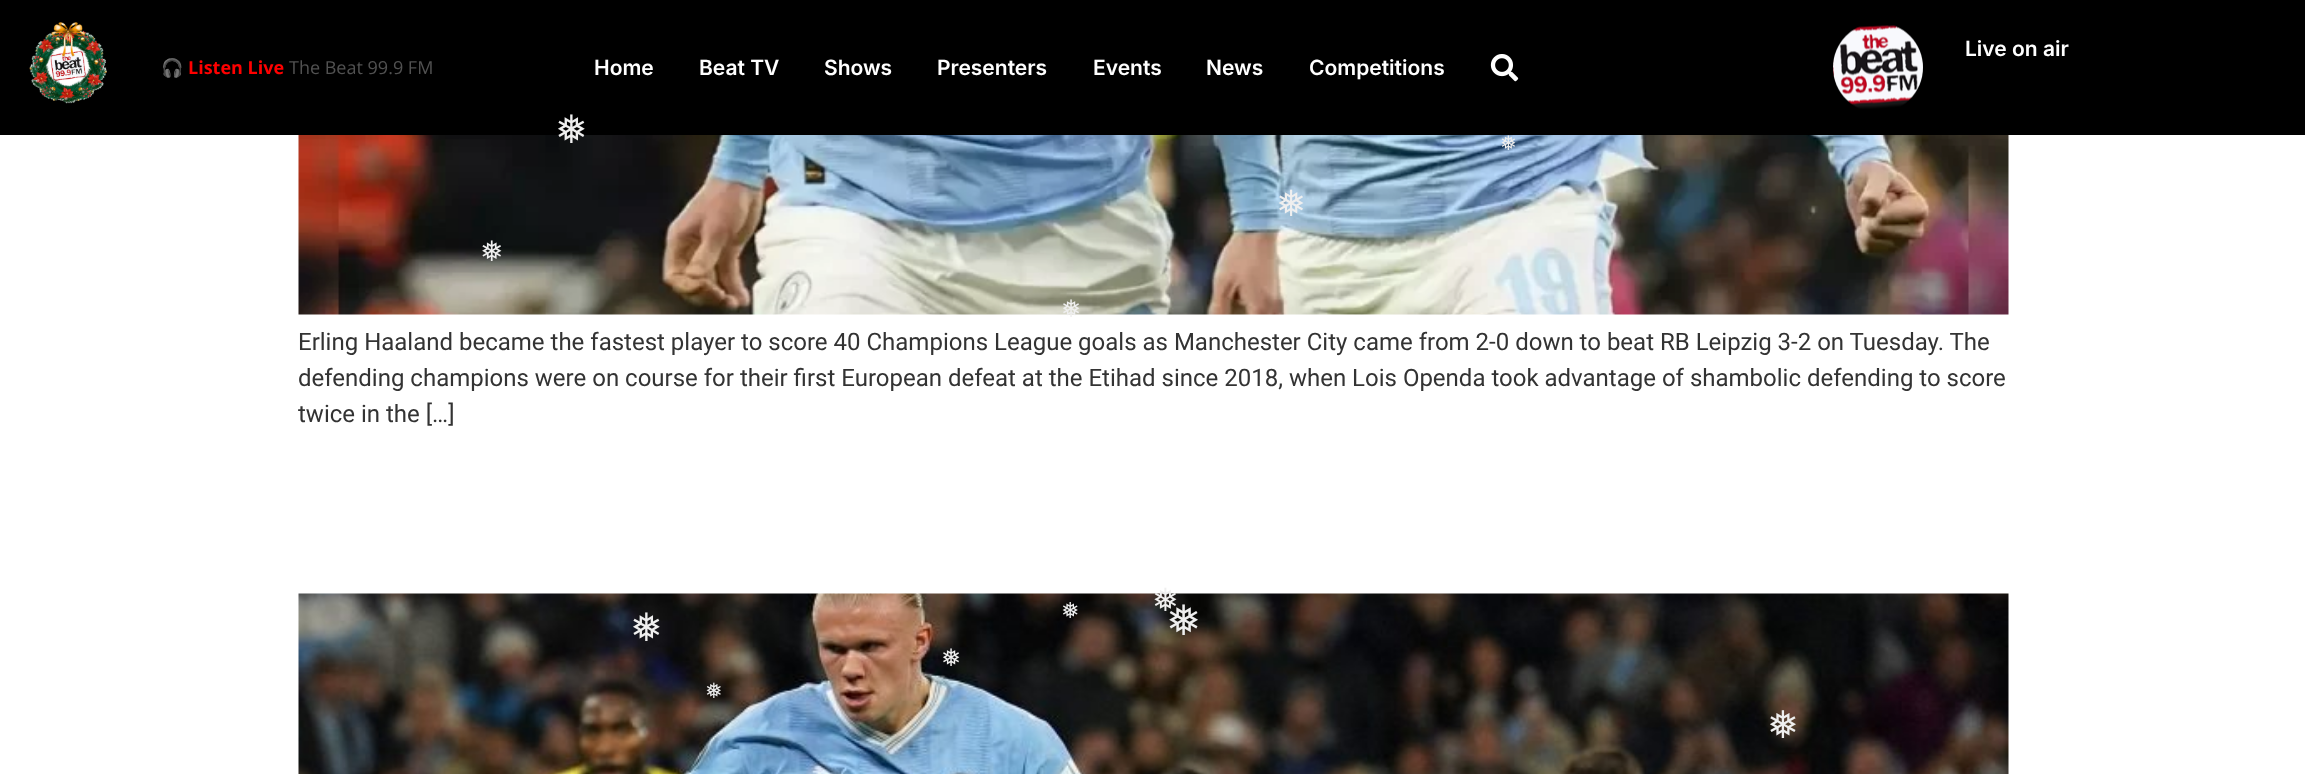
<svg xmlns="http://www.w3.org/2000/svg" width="2305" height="774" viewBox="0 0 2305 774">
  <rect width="100%" height="100%" fill="#ffffff"/>
  <rect x="0" y="0" width="2305" height="135" fill="#000000"/>
  <image x="29" y="22" width="78" height="82" href="img1.png"/>
  <image x="1833" y="25" width="90" height="84" href="img2.png"/>
  <text x="1965" y="56" font-family="Inter" font-size="21" font-weight="600" fill="#ffffff">Live on air</text>
  <text x="161" y="74" font-family="Noto Color Emoji" font-size="18" font-weight="bold" fill="#ffffff">🎧</text>
  <text x="188" y="74" font-family="Open Sans" font-size="18" font-weight="bold" fill="#ff0000">Listen Live</text>
  <text x="289" y="74" font-family="Open Sans" font-size="18" fill="#515151">The Beat 99.9 FM</text>
  <text x="594" y="75" font-family="Inter" font-size="21" font-weight="600" fill="#ffffff">Home</text>
  <text x="699" y="75" font-family="Inter" font-size="21" font-weight="600" fill="#ffffff">Beat TV</text>
  <text x="824" y="75" font-family="Inter" font-size="21" font-weight="600" fill="#ffffff">Shows</text>
  <text x="937" y="75" font-family="Inter" font-size="21" font-weight="600" fill="#ffffff">Presenters</text>
  <text x="1093" y="75" font-family="Inter" font-size="21" font-weight="600" fill="#ffffff">Events</text>
  <text x="1206" y="75" font-family="Inter" font-size="21" font-weight="600" fill="#ffffff">News</text>
  <text x="1309" y="75" font-family="Inter" font-size="21" font-weight="600" fill="#ffffff">Competitions</text>
  <image x="1490" y="54" width="29" height="28" href="img3.png"/>
  <image x="298" y="135" width="1711" height="180" href="img4.png"/>
  <text x="555" y="143" font-family="DejaVu Sans" font-size="39" fill="#efefef">❅</text>
  <text x="1500" y="150" font-family="DejaVu Sans" font-size="20" fill="#efefef">❅</text>
  <text x="1276" y="216" font-family="DejaVu Sans" font-size="36" fill="#efefef">❅</text>
  <text x="480" y="261" font-family="DejaVu Sans" font-size="28" fill="#efefef">❅</text>
  <text x="1061" y="317" font-family="DejaVu Sans" font-size="24" fill="#efefef">❅</text>
  <image x="298" y="593" width="1711" height="181" href="img5.png"/>
  <text x="630" y="641" font-family="DejaVu Sans" font-size="39" fill="#efefef">❅</text>
  <text x="1061" y="618" font-family="DejaVu Sans" font-size="22" fill="#efefef">❅</text>
  <text x="1152" y="611" font-family="DejaVu Sans" font-size="32" fill="#efefef">❅</text>
  <text x="1166" y="635" font-family="DejaVu Sans" font-size="42" fill="#efefef">❅</text>
  <text x="941" y="666" font-family="DejaVu Sans" font-size="24" fill="#efefef">❅</text>
  <text x="705" y="698" font-family="DejaVu Sans" font-size="21" fill="#efefef">❅</text>
  <text x="1767" y="738" font-family="DejaVu Sans" font-size="38" fill="#efefef">❅</text>
  <text x="298" y="350" font-family="Roboto" font-size="24" fill="#333333">Erling Haaland became the fastest player to score 40 Champions League goals as Manchester City came from 2-0 down to beat RB Leipzig 3-2 on Tuesday. The</text>
  <text x="298" y="386" font-family="Roboto" font-size="24" fill="#333333">defending champions were on course for their first European defeat at the Etihad since 2018, when Lois Openda took advantage of shambolic defending to score</text>
  <text x="298" y="422" font-family="Roboto" font-size="24" fill="#333333">twice in the […]</text>
</svg>
